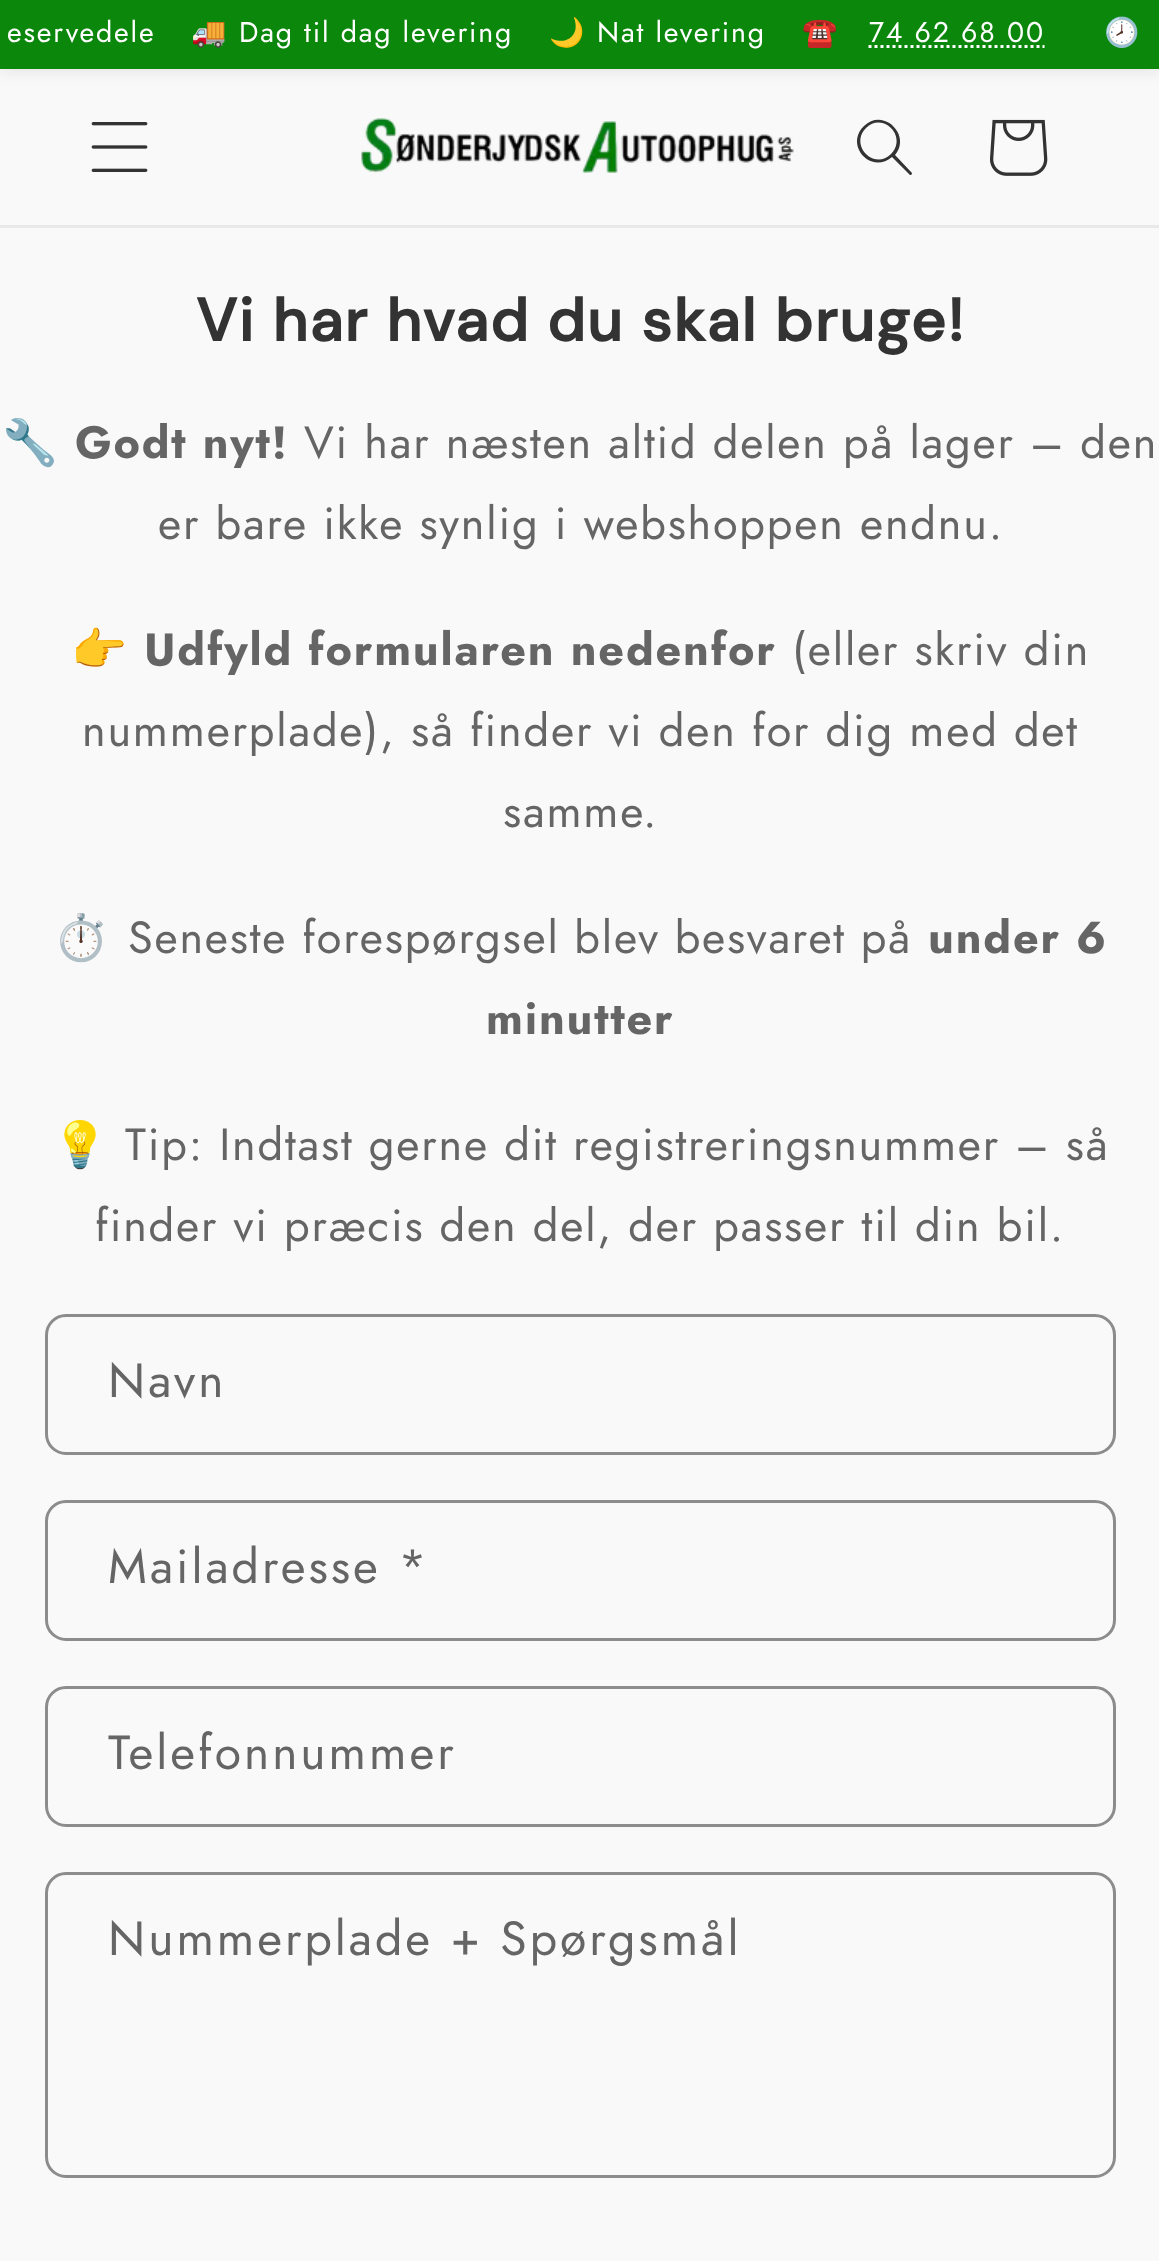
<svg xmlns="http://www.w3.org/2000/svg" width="1159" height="2261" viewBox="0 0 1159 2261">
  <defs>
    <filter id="blur1" x="-50%" y="-200%" width="200%" height="500%"><feGaussianBlur stdDeviation="7.5"/></filter>
  </defs>
  <rect width="100%" height="100%" fill="#f9f9f9"/>
  <rect x="0" y="3" width="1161" height="69" fill="#000000" fill-opacity="0.08" filter="url(#blur1)"/>
  <rect x="0" y="0" width="1159" height="69" fill="#0b870c"/>
  <text x="7" y="42" font-family="Jost" font-size="28.5" letter-spacing="1.8" fill="#ffffff">eservedele</text>
  <text x="191" y="42" font-family="Noto Color Emoji" font-size="28.5" letter-spacing="1.8" fill="#ffffff">🚚</text>
  <text x="239" y="42" font-family="Jost" font-size="28.5" letter-spacing="1.8" fill="#ffffff">Dag til dag levering</text>
  <text x="549" y="42" font-family="Noto Color Emoji" font-size="28.5" letter-spacing="1.8" fill="#ffffff">🌙</text>
  <text x="597" y="42" font-family="Jost" font-size="28.5" letter-spacing="1.8" fill="#ffffff">Nat levering</text>
  <text x="802" y="42" font-family="Noto Color Emoji" font-size="28.5" letter-spacing="1.8" fill="#ffffff">☎️</text>
  <text x="869" y="42" font-family="Jost" font-size="28.5" letter-spacing="1.8" fill="#ffffff">74 62 68 00</text>
  <path d="M868.5 46.5H1044.5" fill="none" stroke="#ffffff" stroke-width="3" stroke-dasharray="3 3"/>
  <text x="1104" y="42" font-family="Noto Color Emoji" font-size="28.5" letter-spacing="1.8" fill="#ffffff">🕗</text>
  <rect x="0" y="225" width="1159" height="3" fill="#e9e9e9"/>
  <image x="91" y="122" width="57" height="50" href="img1.png"/>
  <image x="361" y="118" width="433" height="55" href="img2.png"/>
  <path d="M891 154C874 171 849 145 866 128C883 111 908 137 891 154M892 157C871 175 844 145 864 126C883 107 912 135 895 155L912 173C912 175 910 176 909 174Z" fill="#333333" fill-rule="evenodd"/>
  <image x="990" y="119" width="58" height="57" href="img3.png"/>
  <text x="196" y="341" font-family="DM Sans" font-size="60" font-weight="bold" letter-spacing="1.8" fill="#333333">Vi har hvad du skal bruge!</text>
  <text x="2" y="458" font-family="Noto Color Emoji" font-size="45" font-weight="bold" letter-spacing="1.8" fill="#656565">🔧</text>
  <text x="75" y="458" font-family="Jost" font-size="45" font-weight="bold" letter-spacing="1.8" fill="#656565">Godt nyt!</text>
  <text x="304" y="458" font-family="Jost" font-size="45" letter-spacing="1.8" fill="#656565">Vi har næsten altid delen på lager – den</text>
  <text x="158" y="539" font-family="Jost" font-size="45" letter-spacing="1.8" fill="#656565">er bare ikke synlig i webshoppen endnu.</text>
  <text x="71" y="665" font-family="Noto Color Emoji" font-size="45" font-weight="bold" letter-spacing="1.8" fill="#656565">👉</text>
  <text x="144" y="665" font-family="Jost" font-size="45" font-weight="bold" letter-spacing="1.8" fill="#656565">Udfyld formularen nedenfor</text>
  <text x="792" y="665" font-family="Jost" font-size="45" letter-spacing="1.8" fill="#656565">(eller skriv din</text>
  <text x="82" y="746" font-family="Jost" font-size="45" letter-spacing="1.8" fill="#656565">nummerplade), så finder vi den for dig med det</text>
  <text x="503" y="827" font-family="Jost" font-size="45" letter-spacing="1.8" fill="#656565">samme.</text>
  <text x="53" y="953" font-family="Noto Color Emoji" font-size="45" letter-spacing="1.8" fill="#656565">⏱️</text>
  <text x="128" y="953" word-spacing="-0.5" font-family="Jost" font-size="45" letter-spacing="1.8" fill="#656565">Seneste forespørgsel blev besvaret på</text>
  <text x="928" y="953" font-family="Jost" font-size="45" font-weight="bold" letter-spacing="1.8" fill="#656565">under 6</text>
  <text x="486" y="1034" font-family="Jost" font-size="45" font-weight="bold" letter-spacing="1.8" fill="#656565">minutter</text>
  <text x="52" y="1160" font-family="Noto Color Emoji" font-size="45" letter-spacing="1.8" fill="#656565">💡</text>
  <text x="125" y="1160" font-family="Jost" font-size="45" letter-spacing="1.8" fill="#656565">Tip: Indtast gerne dit registreringsnummer – så</text>
  <text x="95" y="1241" font-family="Jost" font-size="45" letter-spacing="1.8" fill="#656565">finder vi præcis den del, der passer til din bil.</text>
  <rect x="46.5" y="1315.5" width="1068" height="138" rx="19.5" fill="none" stroke="#8c8c8c" stroke-width="3"/>
  <text x="108" y="1397" font-family="Jost" font-size="48" letter-spacing="3" fill="#656565">Navn</text>
  <rect x="46.5" y="1501.5" width="1068" height="138" rx="19.5" fill="none" stroke="#8c8c8c" stroke-width="3"/>
  <text x="108" y="1583" font-family="Jost" font-size="48" letter-spacing="3" fill="#656565">Mailadresse *</text>
  <rect x="46.5" y="1687.5" width="1068" height="138" rx="19.5" fill="none" stroke="#8c8c8c" stroke-width="3"/>
  <text x="108" y="1769" font-family="Jost" font-size="48" letter-spacing="3" fill="#656565">Telefonnummer</text>
  <rect x="46.5" y="1873.5" width="1068" height="303" rx="19.5" fill="none" stroke="#8c8c8c" stroke-width="3"/>
  <text x="108" y="1955" font-family="Jost" font-size="48" letter-spacing="3" fill="#656565">Nummerplade + Spørgsmål</text>
</svg>
